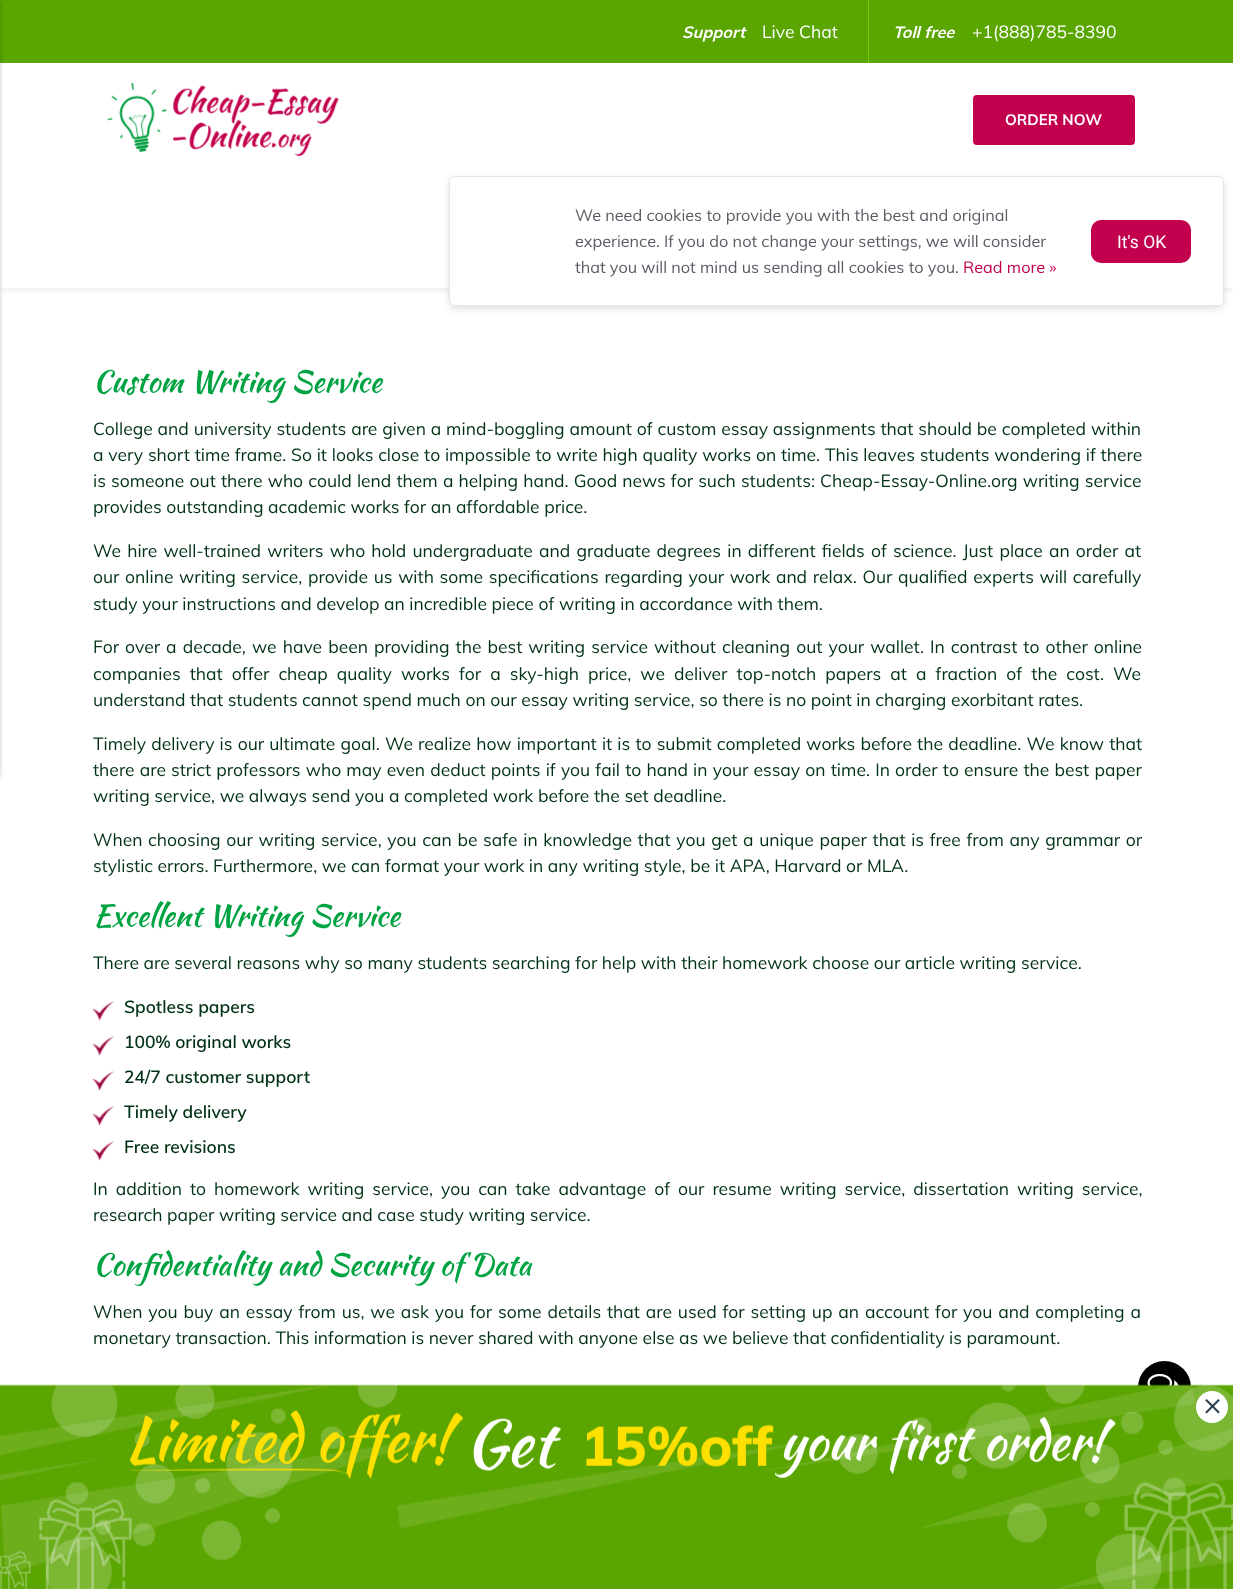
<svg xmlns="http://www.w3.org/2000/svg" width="1233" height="1589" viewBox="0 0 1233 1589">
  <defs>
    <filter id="blur1" x="-50%" y="-200%" width="200%" height="500%"><feGaussianBlur stdDeviation="3"/></filter>
    <filter id="blur2" x="-50%" y="-200%" width="200%" height="500%"><feGaussianBlur stdDeviation="1"/></filter>
    <filter id="blur3" x="-50%" y="-200%" width="200%" height="500%"><feGaussianBlur stdDeviation="4"/></filter>
  </defs>
  <rect width="100%" height="100%" fill="#ffffff"/>
  <rect x="0" y="1" width="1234" height="288" fill="#000000" fill-opacity="0.1" filter="url(#blur1)"/>
  <rect x="0" y="63" width="1233" height="225" fill="#ffffff"/>
  <rect x="0" y="0" width="1233" height="63" fill="#5aa500"/>
  <rect x="-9" y="1" width="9" height="775" fill="#000000" fill-opacity="0.12" filter="url(#blur1)"/>
  <rect x="-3" y="3" width="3" height="775" fill="#000000" fill-opacity="0.14" filter="url(#blur2)"/>
  <text x="682" y="38" font-family="Muli" font-size="16.25" font-weight="bold" font-style="italic" fill="#ffffff">Support</text>
  <text x="762" y="38" font-family="Muli" font-size="17.5" fill="#ffffff">Live Chat</text>
  <rect x="868" y="0" width="1" height="63" fill="#71ce00"/>
  <text x="893" y="38" font-family="Muli" font-size="16.25" font-weight="bold" font-style="italic" fill="#ffffff">Toll free</text>
  <text x="972" y="38" font-family="Muli" font-size="17.5" fill="#ffffff">+1(888)785-8390</text>
  <image x="107" y="82" width="232" height="74" href="img1.png"/>
  <rect x="973" y="95" width="162" height="50" rx="4" fill="#c2004e"/>
  <text x="1005" y="125" font-family="Muli" font-size="15" font-weight="bold" fill="#ffffff">ORDER NOW</text>
  <text x="93" y="392" font-family="Kaushan Script" font-size="30" fill="#00a342">Custom Writing Service</text>
  <text x="93" y="435" word-spacing="0.3" font-family="Muli" font-size="17.5" fill="#003114">College and university students are given a mind-boggling amount of custom essay assignments that should be completed within</text>
  <text x="93" y="461" word-spacing="0.2" font-family="Muli" font-size="17.5" fill="#003114">a very short time frame. So it looks close to impossible to write high quality works on time. This leaves students wondering if there</text>
  <text x="93" y="487" word-spacing="0.6" font-family="Muli" font-size="17.5" fill="#003114">is someone out there who could lend them a helping hand. Good news for such students: Cheap-Essay-Online.org writing service</text>
  <text x="93" y="513" font-family="Muli" font-size="17.5" fill="#003114">provides outstanding academic works for an affordable price.</text>
  <text x="93" y="557" word-spacing="1.6" font-family="Muli" font-size="17.5" fill="#003114">We hire well-trained writers who hold undergraduate and graduate degrees in different fields of science. Just place an order at</text>
  <text x="93" y="583" word-spacing="1.1" font-family="Muli" font-size="17.5" fill="#003114">our online writing service, provide us with some specifications regarding your work and relax. Our qualified experts will carefully</text>
  <text x="93" y="610" font-family="Muli" font-size="17.5" fill="#003114">study your instructions and develop an incredible piece of writing in accordance with them.</text>
  <text x="93" y="653" word-spacing="1.5" font-family="Muli" font-size="17.5" fill="#003114">For over a decade, we have been providing the best writing service without cleaning out your wallet. In contrast to other online</text>
  <text x="93" y="680" word-spacing="4.5" font-family="Muli" font-size="17.5" fill="#003114">companies that offer cheap quality works for a sky-high price, we deliver top-notch papers at a fraction of the cost. We</text>
  <text x="93" y="706" font-family="Muli" font-size="17.5" fill="#003114">understand that students cannot spend much on our essay writing service, so there is no point in charging exorbitant rates.</text>
  <text x="93" y="750" word-spacing="0.6" font-family="Muli" font-size="17.5" fill="#003114">Timely delivery is our ultimate goal. We realize how important it is to submit completed works before the deadline. We know that</text>
  <text x="93" y="776" word-spacing="0.6" font-family="Muli" font-size="17.5" fill="#003114">there are strict professors who may even deduct points if you fail to hand in your essay on time. In order to ensure the best paper</text>
  <text x="93" y="802" font-family="Muli" font-size="17.5" fill="#003114">writing service, we always send you a completed work before the set deadline.</text>
  <text x="93" y="846" word-spacing="1.1" font-family="Muli" font-size="17.5" fill="#003114">When choosing our writing service, you can be safe in knowledge that you get a unique paper that is free from any grammar or</text>
  <text x="93" y="872" font-family="Muli" font-size="17.5" fill="#003114">stylistic errors. Furthermore, we can format your work in any writing style, be it APA, Harvard or MLA.</text>
  <text x="93" y="926" font-family="Kaushan Script" font-size="30" fill="#00a342">Excellent Writing Service</text>
  <text x="93" y="969" font-family="Muli" font-size="17.5" fill="#003114">There are several reasons why so many students searching for help with their homework choose our article writing service.</text>
  <image x="92" y="1001" width="22" height="20" href="img2.png"/>
  <text x="124" y="1013" font-family="Muli" font-size="17.5" font-weight="600" fill="#003114">Spotless papers</text>
  <image x="92" y="1036" width="22" height="20" href="img2.png"/>
  <text x="124" y="1048" font-family="Muli" font-size="17.5" font-weight="600" fill="#003114">100% original works</text>
  <image x="92" y="1071" width="22" height="20" href="img2.png"/>
  <text x="124" y="1083" font-family="Muli" font-size="17.5" font-weight="600" fill="#003114">24/7 customer support</text>
  <image x="92" y="1106" width="22" height="20" href="img2.png"/>
  <text x="124" y="1118" font-family="Muli" font-size="17.5" font-weight="600" fill="#003114">Timely delivery</text>
  <image x="92" y="1141" width="22" height="20" href="img2.png"/>
  <text x="124" y="1153" font-family="Muli" font-size="17.5" font-weight="600" fill="#003114">Free revisions</text>
  <text x="93" y="1195" word-spacing="3.4" font-family="Muli" font-size="17.5" fill="#003114">In addition to homework writing service, you can take advantage of our resume writing service, dissertation writing service,</text>
  <text x="93" y="1221" font-family="Muli" font-size="17.5" fill="#003114">research paper writing service and case study writing service.</text>
  <text x="93" y="1275" font-family="Kaushan Script" font-size="30" fill="#00a342">Confidentiality and Security of Data</text>
  <text x="93" y="1318" word-spacing="1.3" font-family="Muli" font-size="17.5" fill="#003114">When you buy an essay from us, we ask you for some details that are used for setting up an account for you and completing a</text>
  <text x="93" y="1344" font-family="Muli" font-size="17.5" fill="#003114">monetary transaction. This information is never shared with anyone else as we believe that confidentiality is paramount.</text>
  <rect x="1138" y="1361" width="53" height="54" rx="26.5" fill="#000000"/>
  <image x="1147" y="1373" width="32" height="13" href="img3.png"/>
  <image x="0" y="1384" width="1233" height="205" href="img4.png"/>
  <circle cx="1212" cy="1407" r="16" fill="#ffffff"/>
  <image x="1205" y="1399" width="15" height="15" href="img5.png"/>
  <rect x="450" y="180" width="773" height="128" rx="5" fill="#000000" fill-opacity="0.15" filter="url(#blur3)"/>
  <rect x="449.5" y="176.5" width="774" height="129" rx="5.5" fill="#ffffff" stroke="#e2e7eb"/>
  <text x="575" y="221" font-family="Muli" font-size="16.25" fill="#5b5b65">We need cookies to provide you with the best and original</text>
  <text x="575" y="247" font-family="Muli" font-size="16.25" fill="#5b5b65">experience. If you do not change your settings, we will consider</text>
  <text x="575" y="273" font-family="Muli" font-size="16.25" fill="#5b5b65">that you will not mind us sending all cookies to you.</text>
  <text x="963" y="273" font-family="Muli" font-size="16.25" fill="#c2004e">Read more »</text>
  <rect x="1091" y="220" width="100" height="43" rx="10" fill="#c2004e"/>
  <text x="1117" y="248" font-family="Roboto" font-size="17.5" fill="#ffffff">It's OK</text>
</svg>
